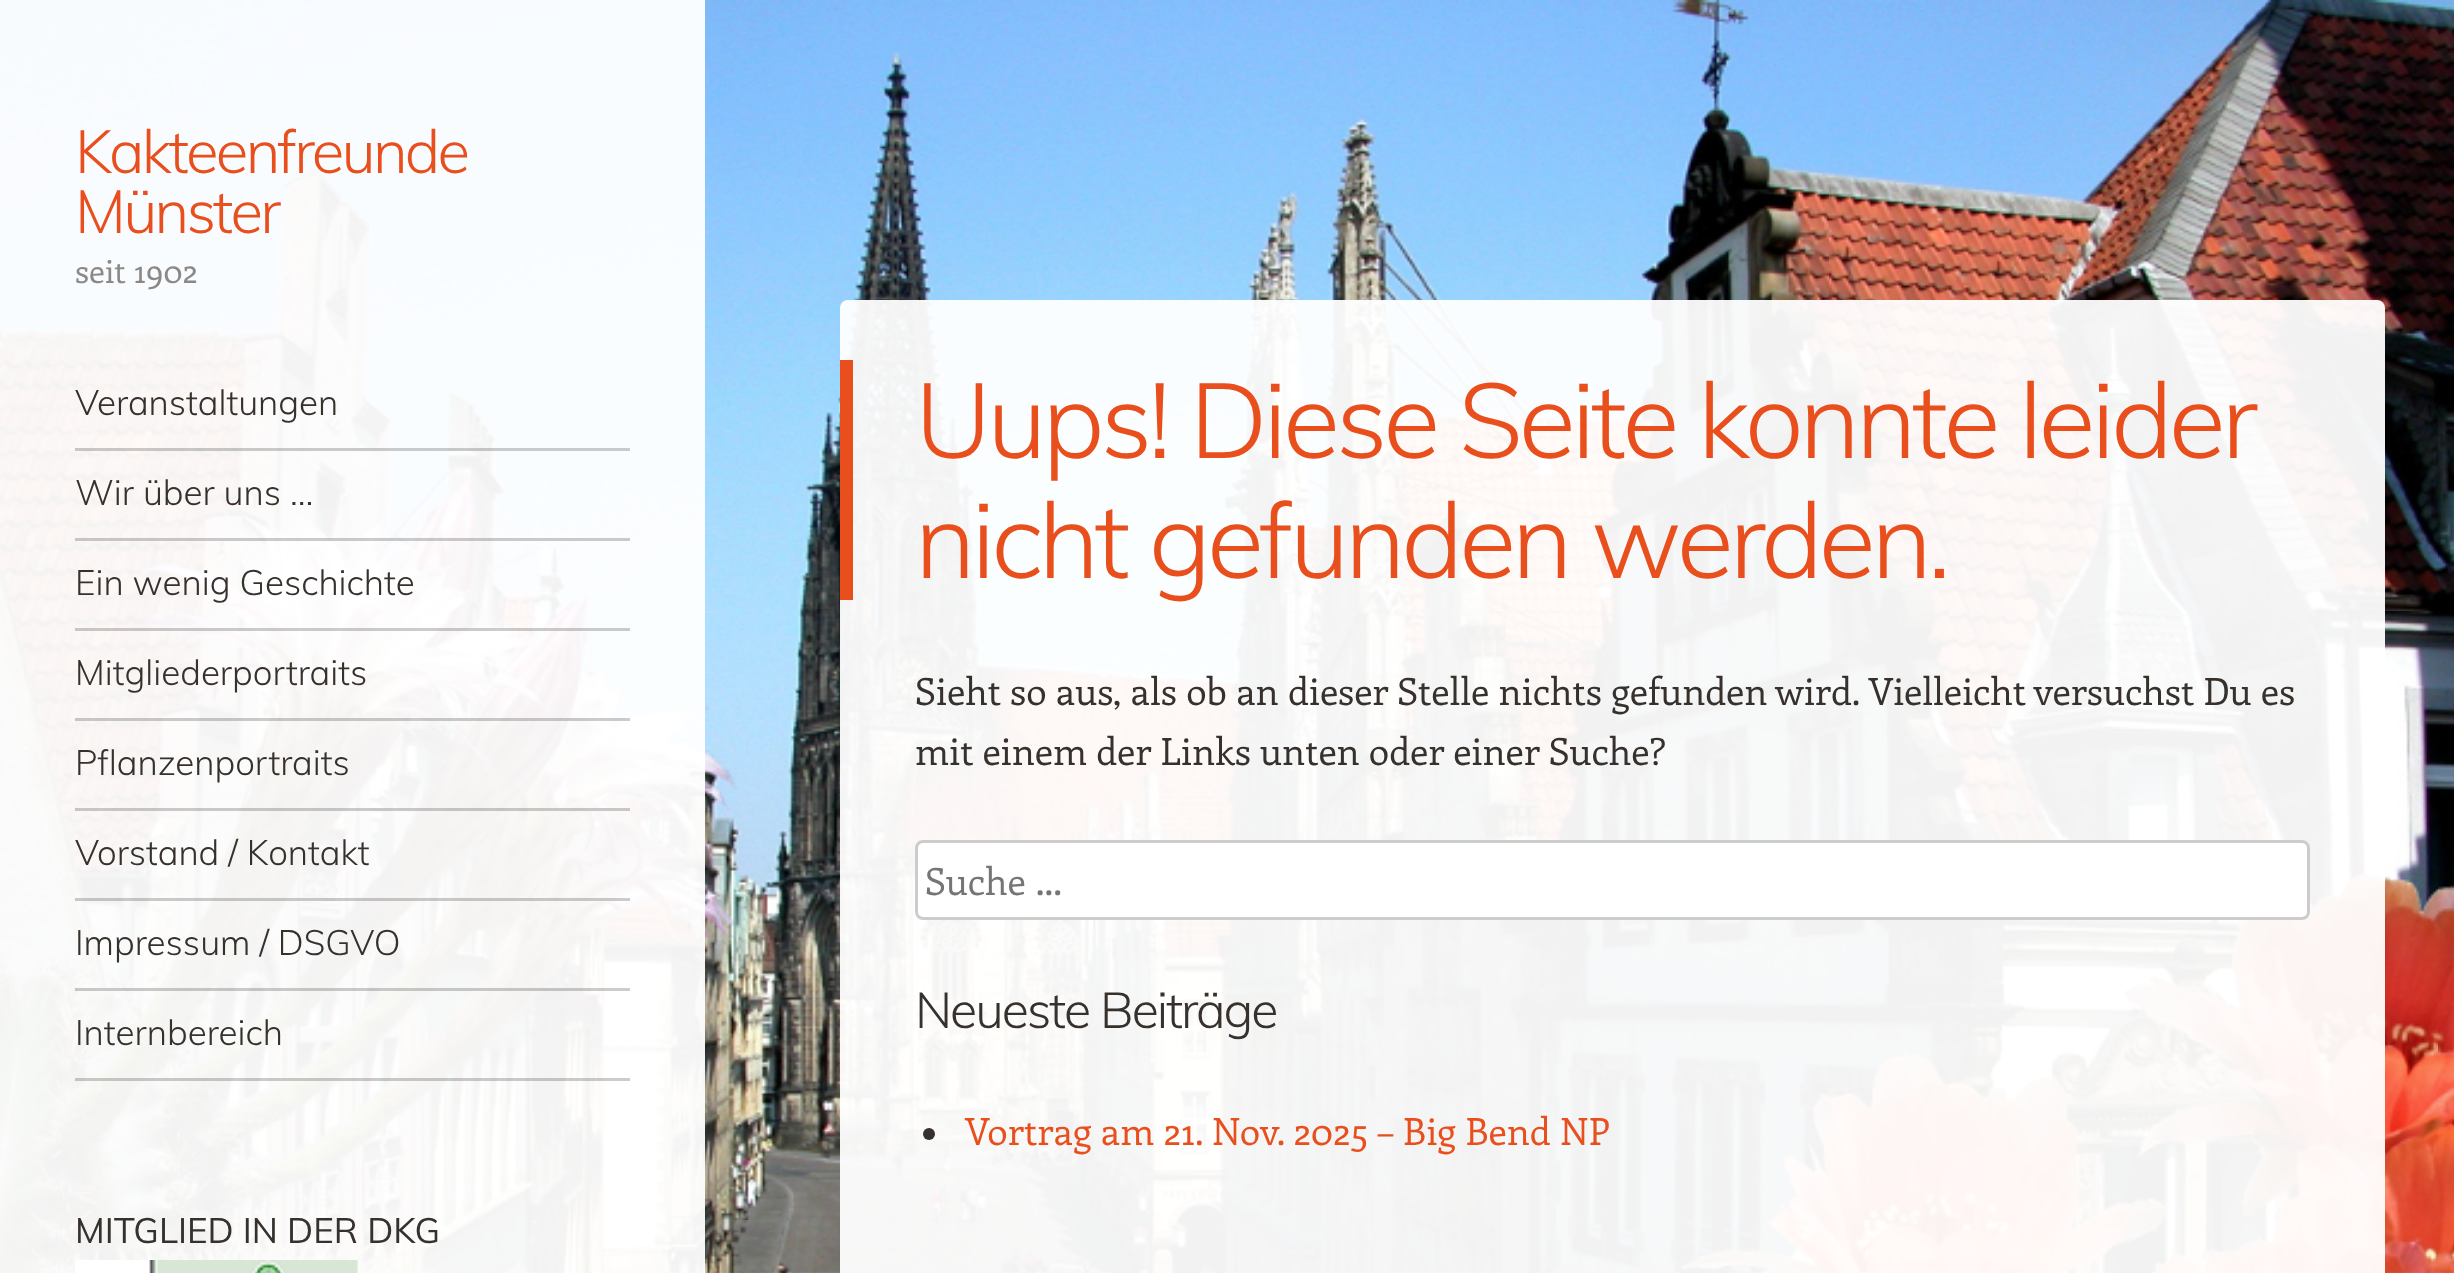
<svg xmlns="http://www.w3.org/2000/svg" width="2454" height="1273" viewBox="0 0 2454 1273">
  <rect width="100%" height="100%" fill="#ffffff"/>
  <image x="0" y="0" width="2454" height="1273" href="img1.png"/>
  <rect x="0" y="0" width="705" height="1273" fill="#ffffff" fill-opacity="0.95"/>
  <text x="75" y="173" font-family="Muli" font-size="60" font-weight="300" letter-spacing="-2.75" fill="#e94f1d">Kakteenfreunde</text>
  <text x="75" y="233" font-family="Muli" font-size="60" font-weight="300" letter-spacing="-2.75" fill="#e94f1d">Münster</text>
  <text x="75" y="283" font-family="Enriqueta" font-size="32.5" fill="#8c8885">seit 1902</text>
  <rect x="75" y="448" width="555" height="3" fill="#000000" fill-opacity="0.2"/>
  <text x="75" y="415" font-family="Muli" font-size="35" font-weight="300" fill="#36312d">Veranstaltungen</text>
  <rect x="75" y="538" width="555" height="3" fill="#000000" fill-opacity="0.2"/>
  <text x="75" y="505" font-family="Muli" font-size="35" font-weight="300" fill="#36312d">Wir über uns …</text>
  <rect x="75" y="628" width="555" height="3" fill="#000000" fill-opacity="0.2"/>
  <text x="75" y="595" font-family="Muli" font-size="35" font-weight="300" fill="#36312d">Ein wenig Geschichte</text>
  <rect x="75" y="718" width="555" height="3" fill="#000000" fill-opacity="0.2"/>
  <text x="75" y="685" font-family="Muli" font-size="35" font-weight="300" fill="#36312d">Mitgliederportraits</text>
  <rect x="75" y="808" width="555" height="3" fill="#000000" fill-opacity="0.2"/>
  <text x="75" y="775" font-family="Muli" font-size="35" font-weight="300" fill="#36312d">Pflanzenportraits</text>
  <rect x="75" y="898" width="555" height="3" fill="#000000" fill-opacity="0.2"/>
  <text x="75" y="865" font-family="Muli" font-size="35" font-weight="300" fill="#36312d">Vorstand / Kontakt</text>
  <rect x="75" y="988" width="555" height="3" fill="#000000" fill-opacity="0.2"/>
  <text x="75" y="955" font-family="Muli" font-size="35" font-weight="300" fill="#36312d">Impressum / DSGVO</text>
  <rect x="75" y="1078" width="555" height="3" fill="#000000" fill-opacity="0.2"/>
  <text x="75" y="1045" font-family="Muli" font-size="35" font-weight="300" fill="#36312d">Internbereich</text>
  <rect x="840" y="300" width="1545" height="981" rx="8" fill="#ffffff" fill-opacity="0.95"/>
  <rect x="840" y="360" width="13" height="240" fill="#e94f1d"/>
  <text x="915" y="458" font-family="Muli" font-size="105" font-weight="300" letter-spacing="-4.2" fill="#e94f1d">Uups! Diese Seite konnte leider</text>
  <text x="915" y="578" font-family="Muli" font-size="105" font-weight="300" letter-spacing="-4.2" fill="#e94f1d">nicht gefunden werden.</text>
  <text x="915" y="705" font-family="Enriqueta" font-size="37.5" fill="#36312d">Sieht so aus, als ob an dieser Stelle nichts gefunden wird. Vielleicht versuchst Du es</text>
  <text x="915" y="765" font-family="Enriqueta" font-size="37.5" fill="#36312d">mit einem der Links unten oder einer Suche?</text>
  <rect x="915" y="840" width="1395" height="80" rx="8" fill="#ffffff"/>
  <rect x="916.5" y="841.5" width="1392" height="77" rx="6.5" fill="none" stroke="#000000" stroke-opacity="0.2" stroke-width="3"/>
  <text x="925" y="895" font-family="Enriqueta" font-size="37.5" fill="#757575">Suche …</text>
  <text x="915" y="1028" font-family="Muli" font-size="50" font-weight="300" letter-spacing="-2" fill="#36312d">Neueste Beiträge</text>
  <circle cx="929" cy="1134" r="6" fill="#36312d"/>
  <text x="965" y="1145" font-family="Enriqueta" font-size="37.5" fill="#e94f1d">Vortrag am 21. Nov. 2025 – Big Bend NP</text>
  <text x="75" y="1243" font-family="Muli" font-size="35" fill="#36312d">MITGLIED IN DER DKG</text>
  <image x="75" y="1260" width="285" height="13" href="img2.png"/>
</svg>
